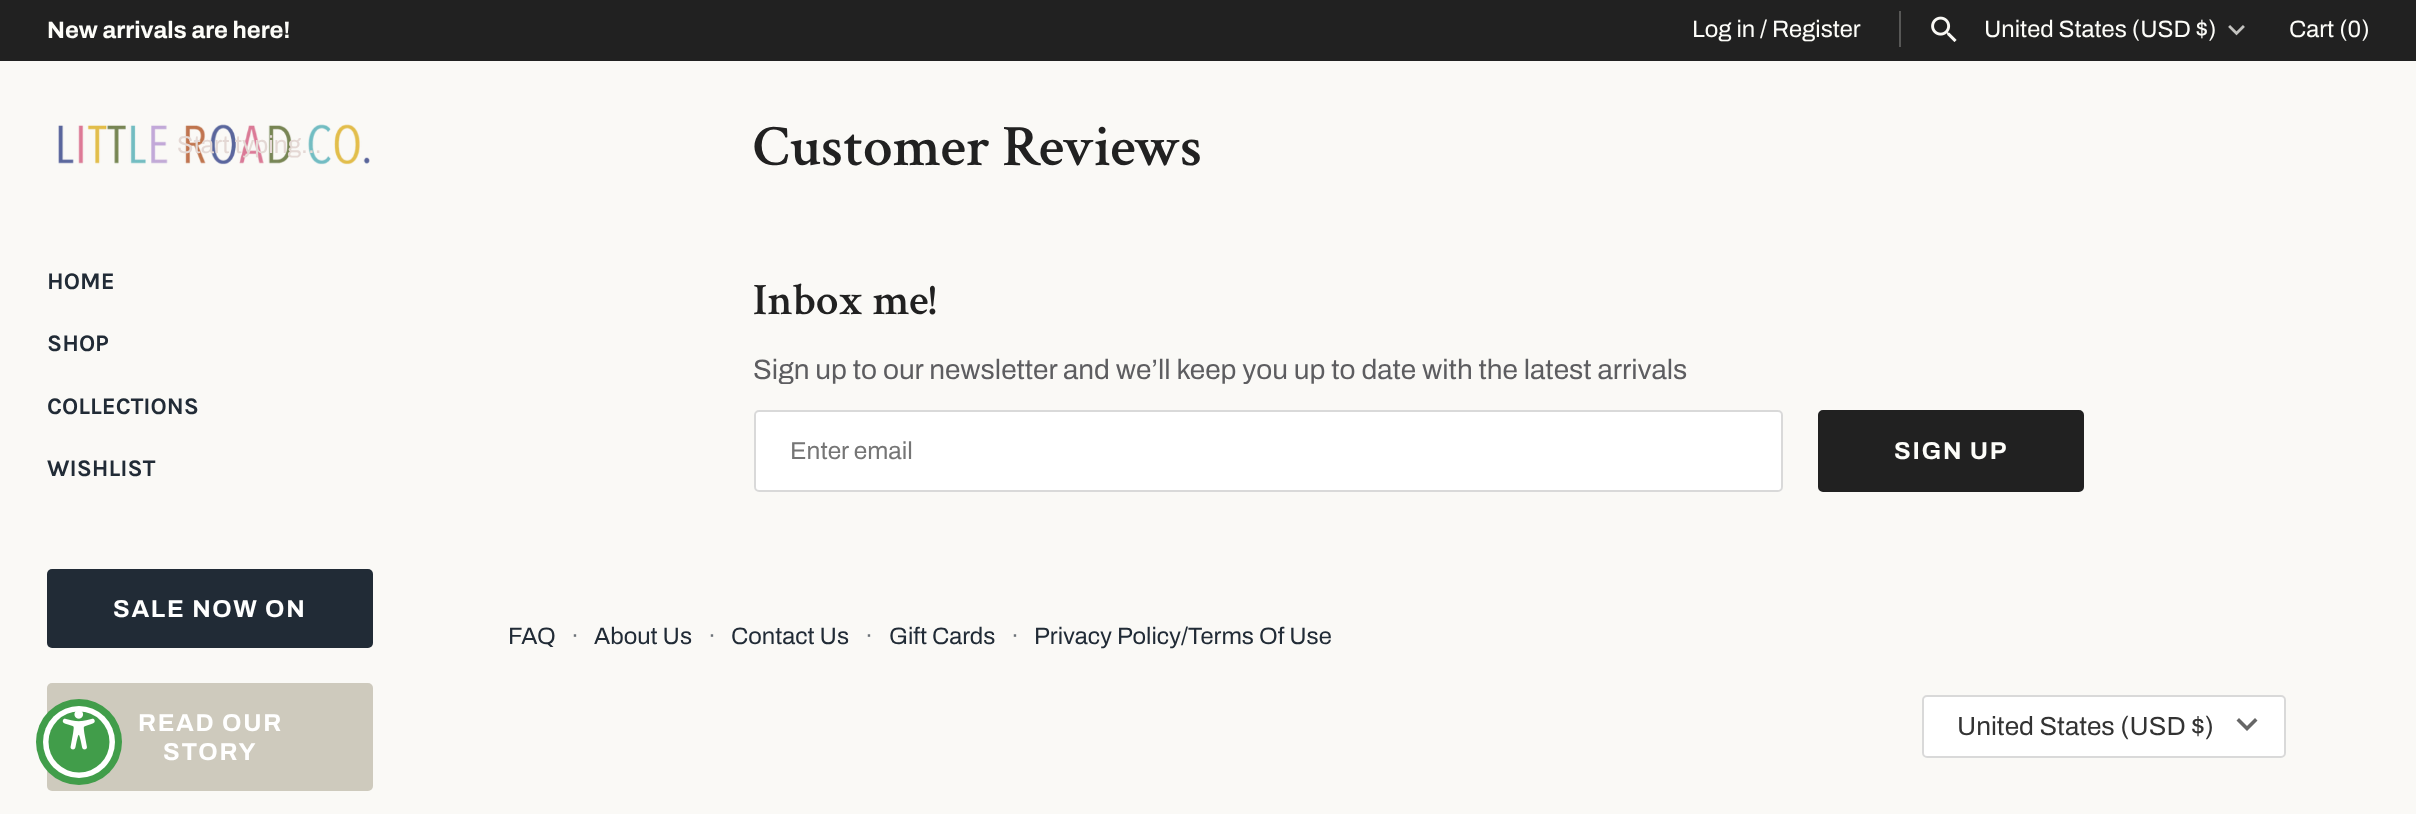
<svg xmlns="http://www.w3.org/2000/svg" width="2416" height="814" viewBox="0 0 2416 814">
  <rect width="100%" height="100%" fill="#faf9f6"/>
  <rect x="0" y="0" width="2416" height="61" fill="#212121"/>
  <text x="47" y="38" font-family="Archivo" font-size="23.75" font-weight="bold" fill="#fdfdf9">New arrivals are here!</text>
  <text x="1692" y="37" font-family="Archivo" font-size="23.75" fill="#fdfdf9">Log in / Register</text>
  <rect x="1899" y="11" width="2" height="36" fill="#575756"/>
  <image x="1931" y="16" width="26" height="26" href="img1.png"/>
  <text x="1984" y="37" font-family="Archivo" font-size="23.75" fill="#fdfdf9">United States (USD $)</text>
  <image x="2228" y="25" width="17" height="11" href="img2.png"/>
  <text x="2289" y="37" font-family="Archivo" font-size="23.75" fill="#fdfdf9">Cart (0)</text>
  <image x="58" y="124" width="312" height="41" href="img3.png"/>
  <text x="177" y="153" font-family="Archivo" font-size="24.5" fill="#e4d8d4">Start typing...</text>
  <text x="47" y="289" font-family="Karla" font-size="23.75" font-weight="bold" fill="#212b36">HOME</text>
  <text x="47" y="351" font-family="Karla" font-size="23.75" font-weight="bold" fill="#212b36">SHOP</text>
  <text x="47" y="414" font-family="Karla" font-size="23.75" font-weight="bold" fill="#212b36">COLLECTIONS</text>
  <text x="47" y="476" font-family="Karla" font-size="23.75" font-weight="bold" fill="#212b36">WISHLIST</text>
  <rect x="47" y="569" width="326" height="79" rx="5" fill="#212b36"/>
  <text x="113" y="617" font-family="Archivo" font-size="24.5" font-weight="bold" letter-spacing="1.75" fill="#ffffff">SALE NOW ON</text>
  <rect x="47" y="683" width="326" height="108" rx="5" fill="#cecabd"/>
  <text x="138" y="731" font-family="Archivo" font-size="24.5" font-weight="bold" letter-spacing="1.75" fill="#ffffff">READ OUR</text>
  <text x="163" y="760" font-family="Archivo" font-size="24.5" font-weight="bold" letter-spacing="1.75" fill="#ffffff">STORY</text>
  <text x="753" y="165" font-family="Crimson Text" font-size="58.75" font-weight="600" fill="#212121">Customer Reviews</text>
  <text x="753" y="314" font-family="Crimson Text" font-size="45" font-weight="600" fill="#212121">Inbox me!</text>
  <text x="753" y="379" font-family="Archivo" font-size="28" fill="#5d5d60">Sign up to our newsletter and we’ll keep you up to date with the latest arrivals</text>
  <rect x="754" y="410" width="1029" height="82" rx="5" fill="#ffffff"/>
  <rect x="755" y="411" width="1027" height="80" rx="4" fill="none" stroke="#000000" stroke-opacity="0.15" stroke-width="2"/>
  <text x="790" y="459" font-family="Archivo" font-size="24.5" fill="#757575">Enter email</text>
  <rect x="1819" y="411" width="264" height="80" rx="4" fill="#212121" stroke="#212121" stroke-width="2"/>
  <text x="1894" y="459" font-family="Archivo" font-size="24.5" font-weight="bold" letter-spacing="1.75" fill="#fdfdf9">SIGN UP</text>
  <text x="508" y="644" font-family="Archivo" font-size="23.75" fill="#212b36">FAQ</text>
  <text x="571" y="644" font-family="Archivo" font-size="23.75" fill="#6d7379">·</text>
  <text x="594" y="644" font-family="Archivo" font-size="23.75" fill="#212b36">About Us</text>
  <text x="708" y="644" font-family="Archivo" font-size="23.75" fill="#6d7379">·</text>
  <text x="731" y="644" font-family="Archivo" font-size="23.75" fill="#212b36">Contact Us</text>
  <text x="865" y="644" font-family="Archivo" font-size="23.75" fill="#6d7379">·</text>
  <text x="889" y="644" font-family="Archivo" font-size="23.75" fill="#212b36">Gift Cards</text>
  <text x="1011" y="644" font-family="Archivo" font-size="23.75" fill="#6d7379">·</text>
  <text x="1034" y="644" font-family="Archivo" font-size="23.75" fill="#212b36">Privacy Policy/Terms Of Use</text>
  <rect x="1922" y="695" width="364" height="63" rx="5" fill="#ffffff"/>
  <rect x="1923" y="696" width="362" height="61" rx="4" fill="none" stroke="#000000" stroke-opacity="0.15" stroke-width="2"/>
  <text x="1957" y="735" font-family="Archivo" font-size="26.25" fill="#333333">United States (USD $)</text>
  <path d="M2239 718L2247 726L2255 718L2257.5 720.5L2247 731L2236.5 720.5Z" fill="#666666"/>
  <circle cx="79" cy="742" r="43" fill="#419d4a"/>
  <circle cx="79" cy="742" r="36" fill="#ffffff"/>
  <circle cx="79" cy="742" r="30.5" fill="#419d4a"/>
  <image x="62" y="711" width="33" height="39" href="img4.png"/>
</svg>
